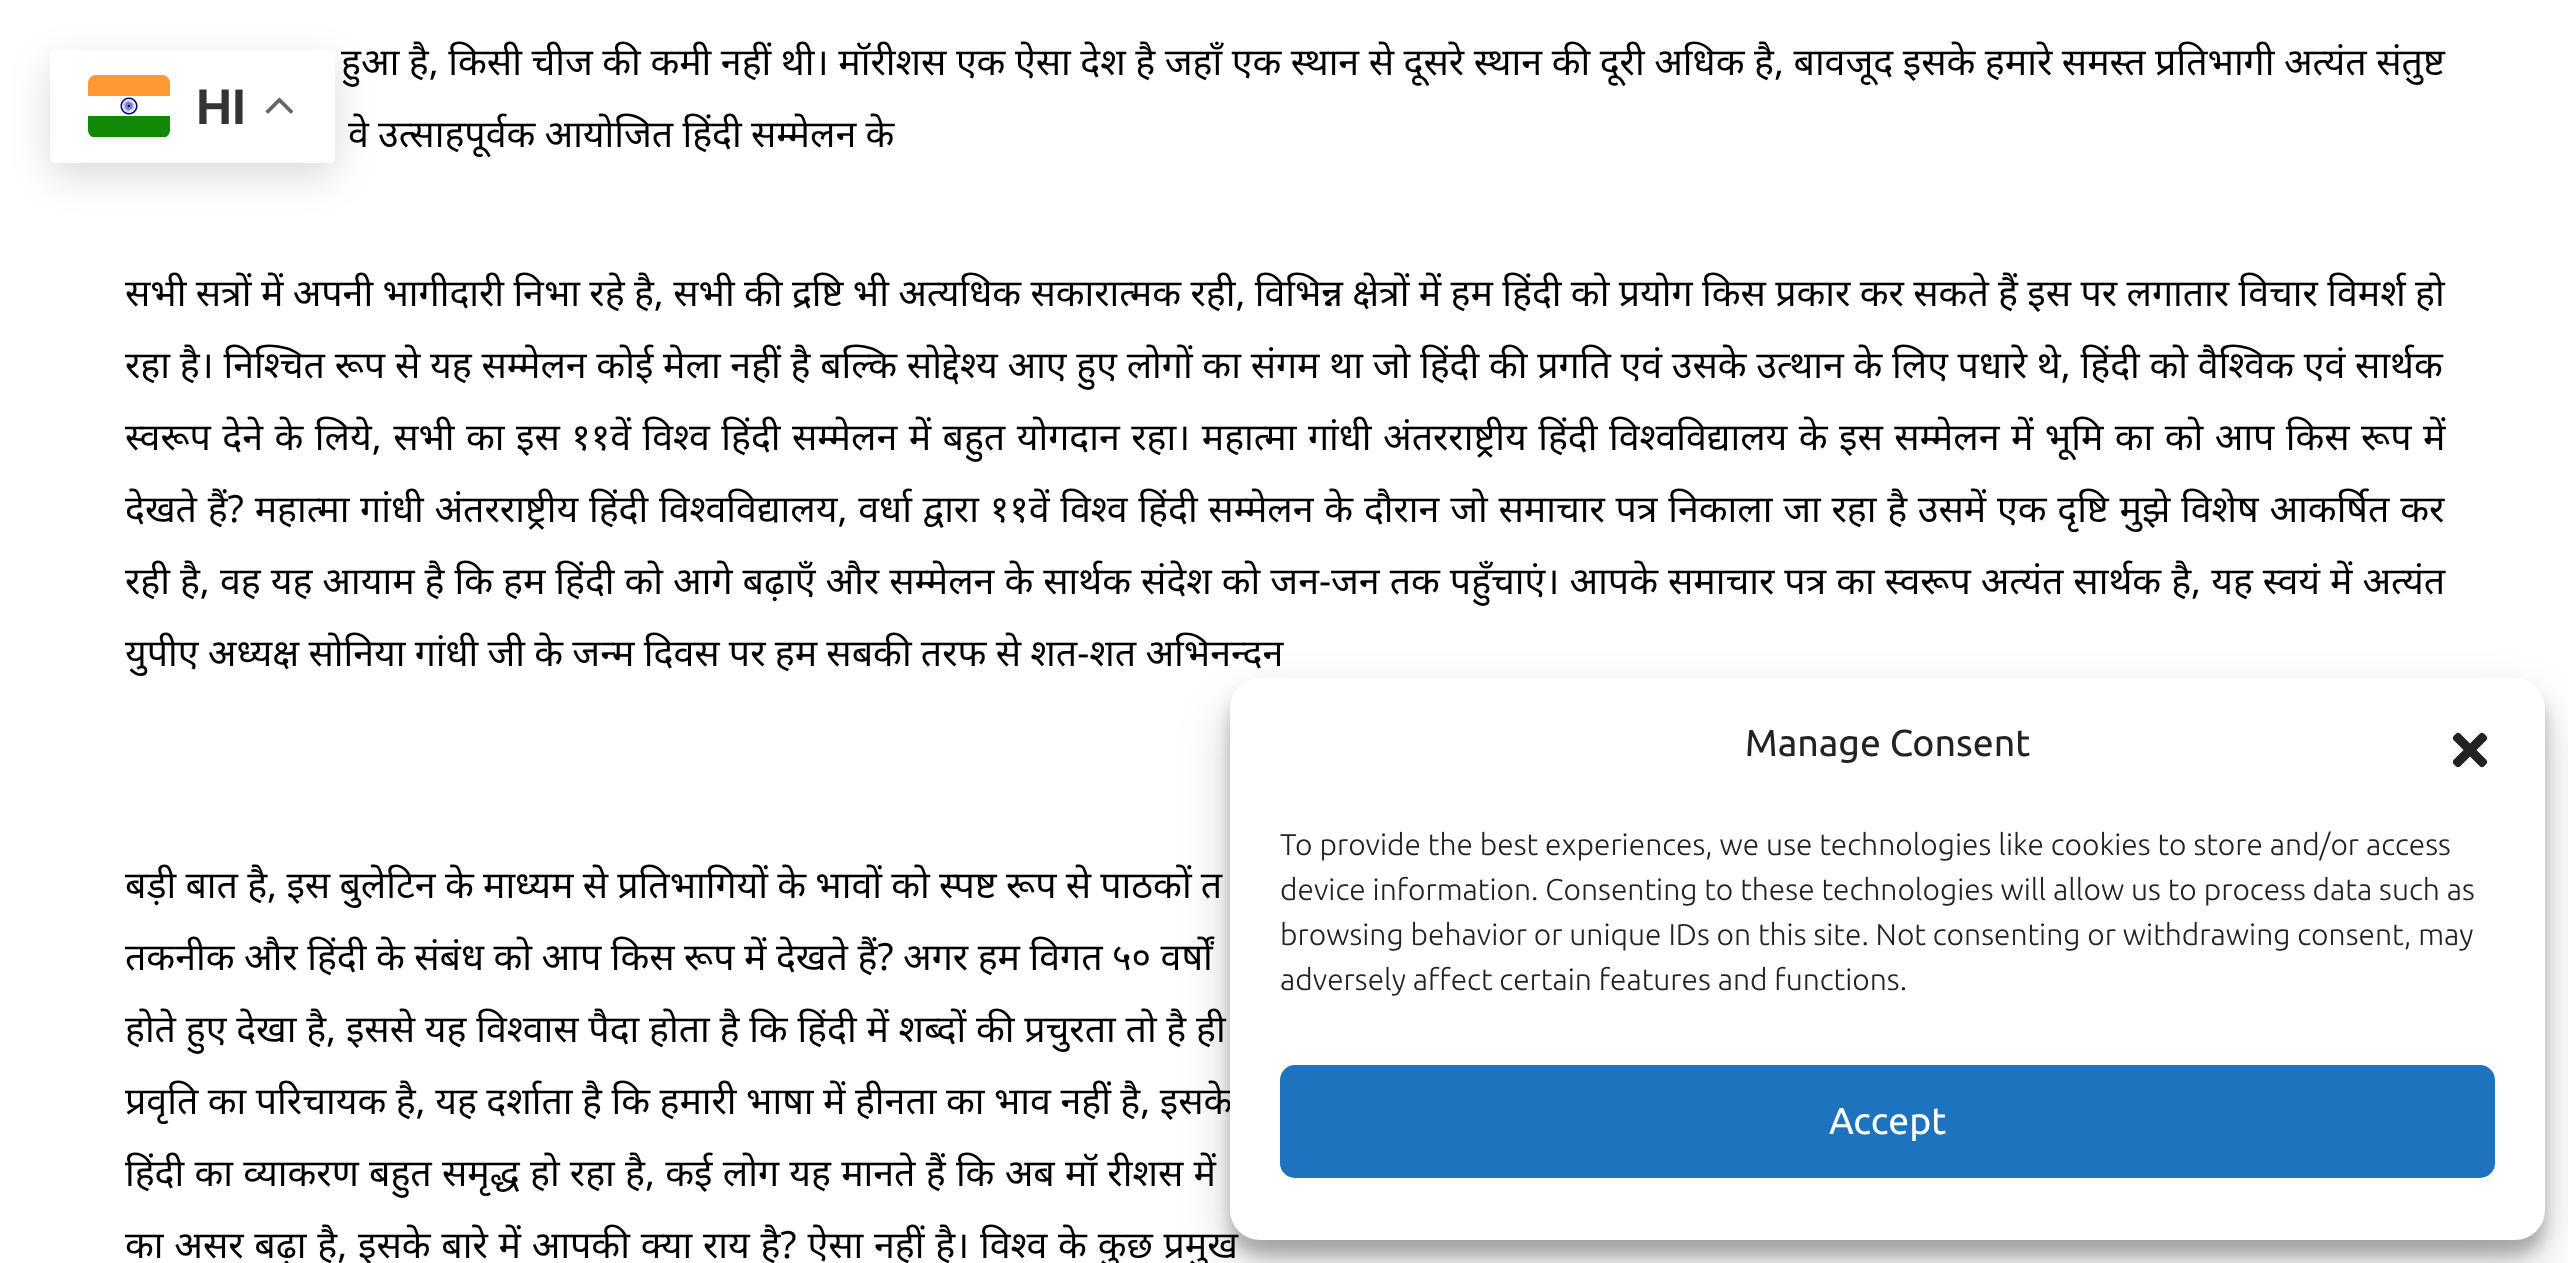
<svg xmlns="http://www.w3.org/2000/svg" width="2568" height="1263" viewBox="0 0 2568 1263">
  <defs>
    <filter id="blur1" x="-50%" y="-200%" width="200%" height="500%"><feGaussianBlur stdDeviation="19"/></filter>
    <filter id="blur2" x="-50%" y="-200%" width="200%" height="500%"><feGaussianBlur stdDeviation="7.5"/></filter>
    <filter id="blur3" x="-50%" y="-200%" width="200%" height="500%"><feGaussianBlur stdDeviation="25"/></filter>
  </defs>
  <rect width="100%" height="100%" fill="#ffffff"/>
  <text x="341" y="75" word-spacing="-0.2" font-family="Noto Sans" font-size="37.5" fill="#000000">हुआ है, किसी चीज की कमी नहीं थी। मॉरीशस एक ऐसा देश है जहाँ एक स्थान से दूसरे स्थान की दूरी अधिक है, बावजूद इसके हमारे समस्त प्रतिभागी अत्यंत संतुष्ट</text>
  <text x="348" y="147" word-spacing="-0.5" font-family="Noto Sans" font-size="37.5" fill="#000000">वे उत्साहपूर्वक आयोजित हिंदी सम्मेलन के</text>
  <text x="125" y="306" word-spacing="-0.4" font-family="Noto Sans" font-size="37.5" fill="#000000">सभी सत्रों में अपनी भागीदारी निभा रहे है, सभी की द्रष्टि भी अत्यधिक सकारात्मक रही, विभिन्न क्षेत्रों में हम हिंदी को प्रयोग किस प्रकार कर सकते हैं इस पर लगातार विचार विमर्श हो</text>
  <text x="125" y="378" font-family="Noto Sans" font-size="37.5" fill="#000000">रहा है। निश्चित रूप से यह सम्मेलन कोई मेला नहीं है बल्कि सोद्देश्य आए हुए लोगों का संगम था जो हिंदी की प्रगति एवं उसके उत्थान के लिए पधारे थे, हिंदी को वैश्विक एवं सार्थक</text>
  <text x="125" y="450" word-spacing="1.7" font-family="Noto Sans" font-size="37.5" fill="#000000">स्वरूप देने के लिये, सभी का इस ११वें विश्व हिंदी सम्मेलन में बहुत योगदान रहा। महात्मा गांधी अंतरराष्ट्रीय हिंदी विश्वविद्यालय के इस सम्मेलन में भूमि का को आप किस रूप में</text>
  <text x="125" y="522" word-spacing="1" font-family="Noto Sans" font-size="37.5" fill="#000000">देखते हैं? महात्मा गांधी अंतरराष्ट्रीय हिंदी विश्वविद्यालय, वर्धा द्वारा ११वें विश्व हिंदी सम्मेलन के दौरान जो समाचार पत्र निकाला जा रहा है उसमें एक दृष्टि मुझे विशेष आकर्षित कर</text>
  <text x="125" y="594" word-spacing="0.25" font-family="Noto Sans" font-size="37.5" fill="#000000">रही है, वह यह आयाम है कि हम हिंदी को आगे बढ़ाएँ और सम्मेलन के सार्थक संदेश को जन-जन तक पहुँचाएं। आपके समाचार पत्र का स्वरूप अत्यंत सार्थक है, यह स्वयं में अत्यंत</text>
  <text x="125" y="666" word-spacing="-0.5" font-family="Noto Sans" font-size="37.5" fill="#000000">युपीए अध्यक्ष सोनिया गांधी जी के जन्म दिवस पर हम सबकी तरफ से शत-शत अभिनन्दन</text>
  <text x="125" y="898" word-spacing="-0.5" font-family="Noto Sans" font-size="37.5" fill="#000000">बड़ी बात है, इस बुलेटिन के माध्यम से प्रतिभागियों के भावों को स्पष्ट रूप से पाठकों त</text>
  <text x="125" y="970" word-spacing="-0.25" font-family="Noto Sans" font-size="37.5" fill="#000000">तकनीक और हिंदी के संबंध को आप किस रूप में देखते हैं? अगर हम विगत ५० वर्षों</text>
  <text x="125" y="1042" font-family="Noto Sans" font-size="37.5" fill="#000000">होते हुए देखा है, इससे यह विश्वास पैदा होता है कि हिंदी में शब्दों की प्रचुरता तो है ही</text>
  <text x="125" y="1114" word-spacing="-0.25" font-family="Noto Sans" font-size="37.5" fill="#000000">प्रवृति का परिचायक है, यह दर्शाता है कि हमारी भाषा में हीनता का भाव नहीं है, इसके</text>
  <text x="125" y="1186" word-spacing="0.5" font-family="Noto Sans" font-size="37.5" fill="#000000">हिंदी का व्याकरण बहुत समृद्ध हो रहा है, कई लोग यह मानते हैं कि अब मॉ रीशस में</text>
  <text x="125" y="1258" word-spacing="1" font-family="Noto Sans" font-size="37.5" fill="#000000">का असर बढ़ा है, इसके बारे में आपकी क्या राय है? ऐसा नहीं है। विश्व के कुछ प्रमुख</text>
  <rect x="50" y="63" width="285" height="112" rx="5" fill="#000000" fill-opacity="0.15" filter="url(#blur1)"/>
  <rect x="50" y="50" width="285" height="113" rx="5" fill="#ffffff"/>
  <image x="88" y="75" width="82" height="62" href="img1.png"/>
  <text x="196" y="124" font-family="Liberation Sans" font-size="50" font-weight="bold" fill="#333333">HI</text>
  <image x="265" y="97" width="28" height="17" href="img2.png"/>
  <rect x="1230" y="693" width="1315" height="562" rx="30" fill="#000000" fill-opacity="0.23" filter="url(#blur2)"/>
  <rect x="1230" y="703" width="1315" height="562" rx="30" fill="#000000" fill-opacity="0.19" filter="url(#blur3)"/>
  <rect x="1230" y="678" width="1315" height="562" rx="30" fill="#ffffff"/>
  <text x="1745" y="756" font-family="Ubuntu" font-size="37.5" fill="#222222">Manage Consent</text>
  <image x="2452" y="732" width="36" height="36" href="img3.png"/>
  <text x="1280" y="855" font-family="Ubuntu" font-size="30" font-weight="300" fill="#222222">To provide the best experiences, we use technologies like cookies to store and/or access</text>
  <text x="1280" y="900" font-family="Ubuntu" font-size="30" font-weight="300" fill="#222222">device information. Consenting to these technologies will allow us to process data such as</text>
  <text x="1280" y="945" font-family="Ubuntu" font-size="30" font-weight="300" fill="#222222">browsing behavior or unique IDs on this site. Not consenting or withdrawing consent, may</text>
  <text x="1280" y="990" font-family="Ubuntu" font-size="30" font-weight="300" fill="#222222">adversely affect certain features and functions.</text>
  <rect x="1281.5" y="1066.5" width="1212" height="110" rx="13.5" fill="#1e73be" stroke="#1e73be" stroke-width="3"/>
  <text x="1829" y="1134" font-family="Ubuntu" font-size="37.5" fill="#ffffff">Accept</text>
</svg>
